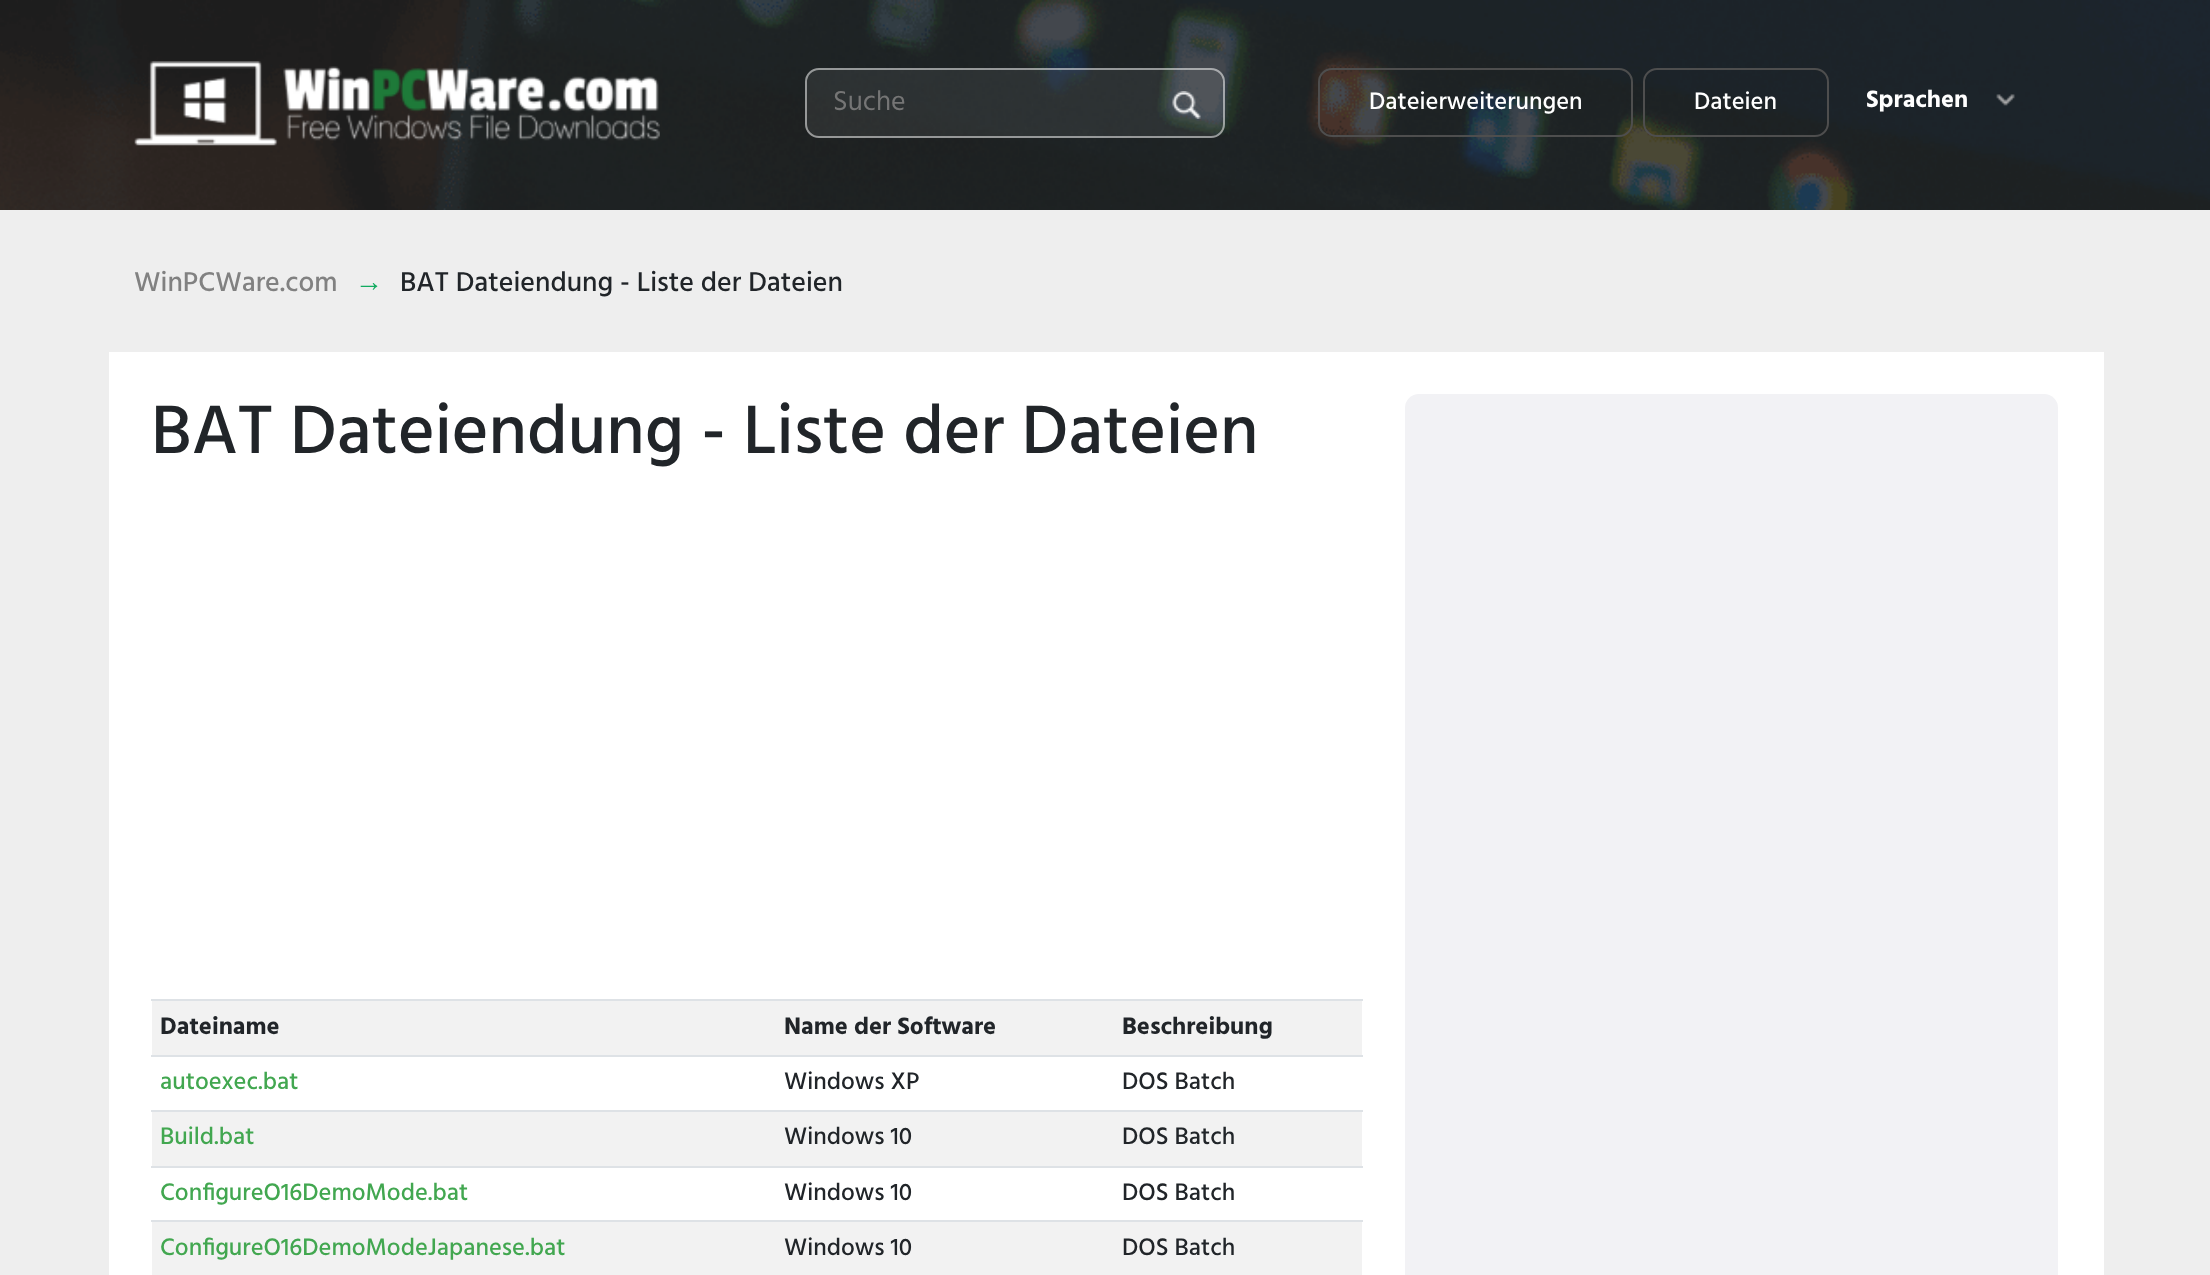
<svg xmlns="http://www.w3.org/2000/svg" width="2210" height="1275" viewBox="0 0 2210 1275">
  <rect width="100%" height="100%" fill="#eeeeee"/>
  <image x="0" y="0" width="2210" height="210" href="img1.png"/>
  <image x="134" y="61" width="526" height="85" href="img2.png"/>
  <rect x="805" y="68" width="420" height="70" rx="14" fill="#ffffff" fill-opacity="0.07"/>
  <rect x="806" y="69" width="418" height="68" rx="13" fill="none" stroke="#ffffff" stroke-opacity="0.5" stroke-width="2"/>
  <text x="833" y="110" font-family="Hind" font-size="28" fill="#757575">Suche</text>
  <image x="1172" y="91" width="29" height="28" href="img3.png"/>
  <rect x="1319" y="69" width="313" height="67" rx="13" fill="none" stroke="#4e4e4e" stroke-width="2"/>
  <text x="1369" y="109" font-family="Hind" font-size="24.5" font-weight="500" fill="#ffffff">Dateierweiterungen</text>
  <rect x="1644" y="69" width="184" height="67" rx="13" fill="none" stroke="#4e4e4e" stroke-width="2"/>
  <text x="1694" y="109" font-family="Hind" font-size="24.5" font-weight="500" fill="#ffffff">Dateien</text>
  <text x="1866" y="107" font-family="Hind" font-size="24.5" font-weight="bold" fill="#ffffff">Sprachen</text>
  <image x="1996" y="94" width="19" height="12" href="img4.png"/>
  <text x="134" y="291" font-family="Hind" font-size="28" font-weight="500" fill="#818181">WinPCWare.com</text>
  <text x="355" y="291" font-family="Liberation Serif" font-size="28" fill="#12ab60">→</text>
  <text x="400" y="291" font-family="Hind" font-size="28" font-weight="500" fill="#212529">BAT Dateiendung - Liste der Dateien</text>
  <rect x="109" y="352" width="1995" height="923" fill="#ffffff"/>
  <text x="151" y="453" font-family="Hind" font-size="70" font-weight="500" fill="#212529">BAT Dateiendung - Liste der Dateien</text>
  <rect x="152" y="1001" width="1210" height="54" fill="#f2f2f2"/>
  <text x="160" y="1034" font-family="Hind" font-size="24.5" font-weight="bold" fill="#212529">Dateiname</text>
  <text x="784" y="1034" font-family="Hind" font-size="24.5" font-weight="bold" fill="#212529">Name der Software</text>
  <rect x="151" y="999" width="1212" height="2" fill="#dee2e6"/>
  <text x="1122" y="1034" font-family="Hind" font-size="24.5" font-weight="bold" fill="#212529">Beschreibung</text>
  <text x="160" y="1089" font-family="Hind" font-size="24.5" font-weight="500" fill="#42a750">autoexec.bat</text>
  <text x="784" y="1089" font-family="Hind" font-size="24.5" font-weight="500" fill="#212529">Windows XP</text>
  <rect x="151" y="1055" width="1212" height="2" fill="#dee2e6"/>
  <text x="1122" y="1089" font-family="Hind" font-size="24.5" font-weight="500" fill="#212529">DOS Batch</text>
  <rect x="152" y="1112" width="1210" height="54" fill="#f2f2f2"/>
  <text x="160" y="1144" font-family="Hind" font-size="24.5" font-weight="500" fill="#42a750">Build.bat</text>
  <text x="784" y="1144" font-family="Hind" font-size="24.5" font-weight="500" fill="#212529">Windows 10</text>
  <rect x="151" y="1110" width="1212" height="2" fill="#dee2e6"/>
  <text x="1122" y="1144" font-family="Hind" font-size="24.5" font-weight="500" fill="#212529">DOS Batch</text>
  <text x="160" y="1200" font-family="Hind" font-size="24.5" font-weight="500" fill="#42a750">ConfigureO16DemoMode.bat</text>
  <text x="784" y="1200" font-family="Hind" font-size="24.5" font-weight="500" fill="#212529">Windows 10</text>
  <rect x="151" y="1166" width="1212" height="2" fill="#dee2e6"/>
  <text x="1122" y="1200" font-family="Hind" font-size="24.5" font-weight="500" fill="#212529">DOS Batch</text>
  <rect x="152" y="1222" width="1210" height="53" fill="#f2f2f2"/>
  <text x="160" y="1255" font-family="Hind" font-size="24.5" font-weight="500" fill="#42a750">ConfigureO16DemoModeJapanese.bat</text>
  <text x="784" y="1255" font-family="Hind" font-size="24.5" font-weight="500" fill="#212529">Windows 10</text>
  <rect x="151" y="1220" width="1212" height="2" fill="#dee2e6"/>
  <text x="1122" y="1255" font-family="Hind" font-size="24.5" font-weight="500" fill="#212529">DOS Batch</text>
  <rect x="1405" y="394" width="653" height="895" rx="14" fill="#f2f2f5"/>
</svg>
